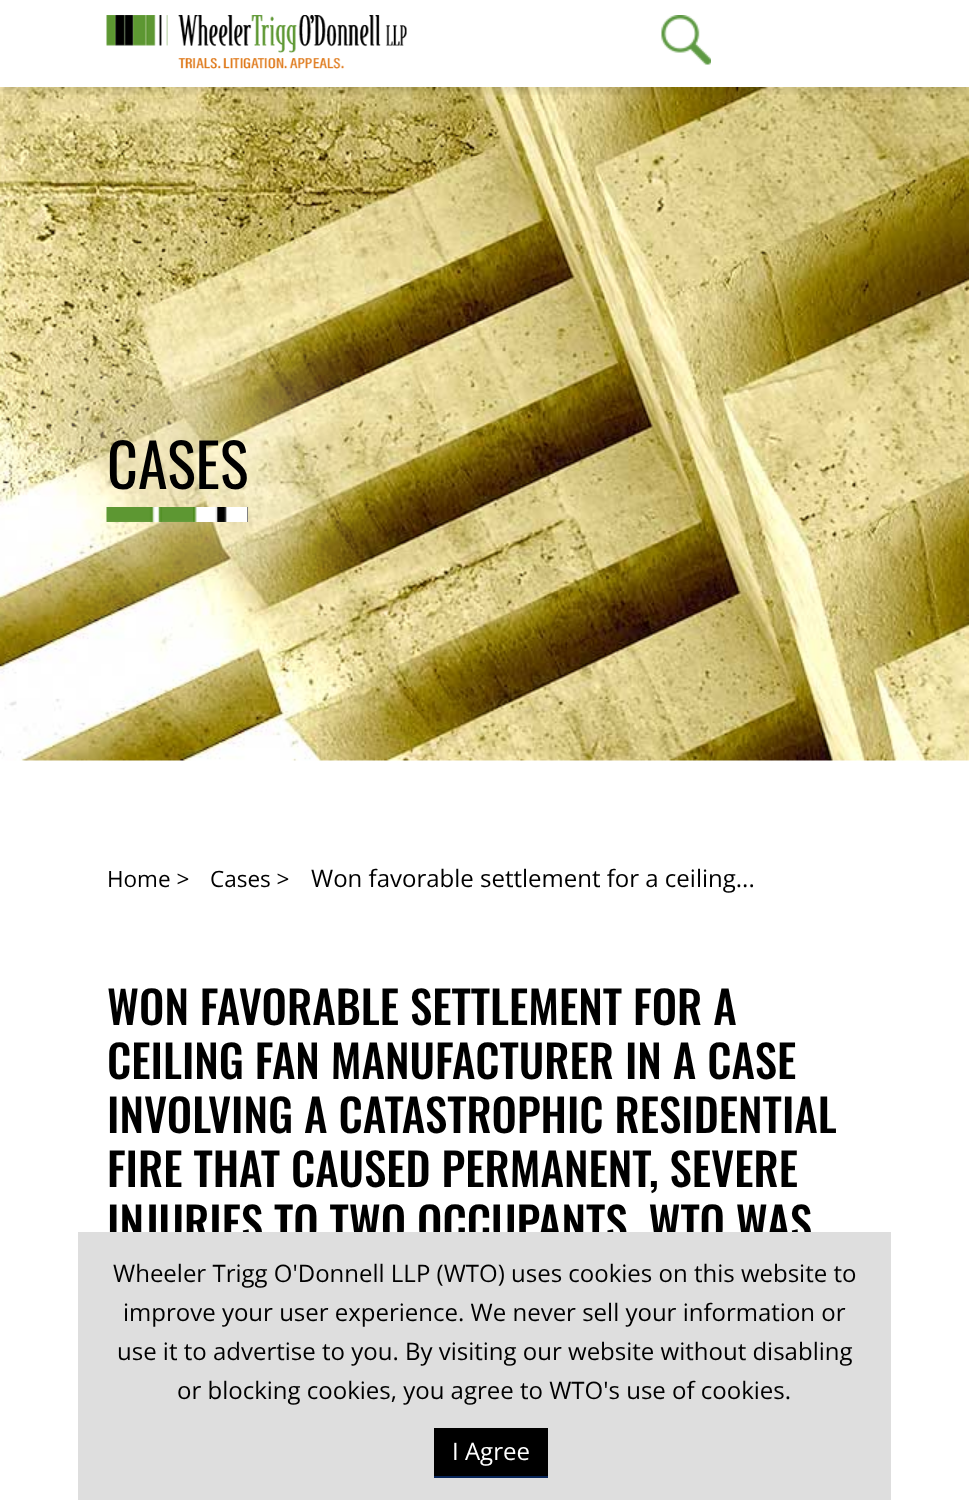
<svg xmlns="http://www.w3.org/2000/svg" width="969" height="1500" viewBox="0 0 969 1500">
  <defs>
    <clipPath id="clip1"><rect x="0" y="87" width="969" height="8"/></clipPath>
    <filter id="blur1" x="-50%" y="-200%" width="200%" height="500%"><feGaussianBlur stdDeviation="4"/></filter>
    <clipPath id="clip2"><path d="M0 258H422V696H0ZM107 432H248V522H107Z" clip-rule="evenodd"/></clipPath>
    <filter id="blur2" x="-50%" y="-200%" width="200%" height="500%"><feGaussianBlur stdDeviation="37.5"/></filter>
  </defs>
  <rect width="100%" height="100%" fill="#ffffff"/>
  <image x="0" y="87" width="969" height="674" href="img3.png"/>
  <g clip-path="url(#clip1)">
    <rect x="0" y="5" width="969" height="87" fill="#000000" fill-opacity="0.1" filter="url(#blur1)"/>
  </g>
  <image x="106" y="15" width="301" height="54" href="img1.png"/>
  <image x="661" y="15" width="50" height="50" href="img2.png"/>
  <g clip-path="url(#clip2)">
    <rect x="47" y="372" width="261" height="210" fill="#ffffff" fill-opacity="0.3" filter="url(#blur2)"/>
  </g>
  <rect x="107" y="432" width="141" height="75" fill="#ffffff" fill-opacity="0.3"/>
  <text x="107" y="489" font-family="Oswald" font-size="60" fill="#000000">CASES</text>
  <rect x="247" y="507" width="1" height="15" fill="#000000"/>
  <image x="106" y="507" width="142" height="15" href="img4.png"/>
  <text x="107" y="887" font-family="Open Sans" font-size="22.5" fill="#000000">Home &gt;</text>
  <text x="210" y="887" font-family="Open Sans" font-size="22.5" fill="#000000">Cases &gt;</text>
  <text x="311" y="887" font-family="Open Sans" font-size="24" fill="#000000">Won favorable settlement for a ceiling...</text>
  <text x="107" y="1025" font-family="Oswald" font-size="45" font-weight="500" fill="#000000">WON FAVORABLE SETTLEMENT FOR A</text>
  <text x="107" y="1079" font-family="Oswald" font-size="45" font-weight="500" fill="#000000">CEILING FAN MANUFACTURER IN A CASE</text>
  <text x="107" y="1133" font-family="Oswald" font-size="45" font-weight="500" fill="#000000">INVOLVING A CATASTROPHIC RESIDENTIAL</text>
  <text x="107" y="1187" font-family="Oswald" font-size="45" font-weight="500" fill="#000000">FIRE THAT CAUSED PERMANENT, SEVERE</text>
  <text x="107" y="1241" font-family="Oswald" font-size="45" font-weight="500" fill="#000000">INJURIES TO TWO OCCUPANTS. WTO WAS</text>
  <rect x="78" y="1232" width="813" height="268" fill="#dedede"/>
  <text x="113" y="1282" font-family="Open Sans" font-size="24" fill="#000000">Wheeler Trigg O'Donnell LLP (WTO) uses cookies on this website to</text>
  <text x="123" y="1321" font-family="Open Sans" font-size="24" fill="#000000">improve your user experience. We never sell your information or</text>
  <text x="117" y="1360" font-family="Open Sans" font-size="24" fill="#000000">use it to advertise to you. By visiting our website without disabling</text>
  <text x="177" y="1399" font-family="Open Sans" font-size="24" fill="#000000">or blocking cookies, you agree to WTO's use of cookies.</text>
  <rect x="434" y="1428" width="114" height="48" fill="#000000"/>
  <rect x="434" y="1476" width="114" height="2" fill="#072559"/>
  <text x="452" y="1460" font-family="Open Sans" font-size="24" fill="#ffffff">I Agree</text>
</svg>
